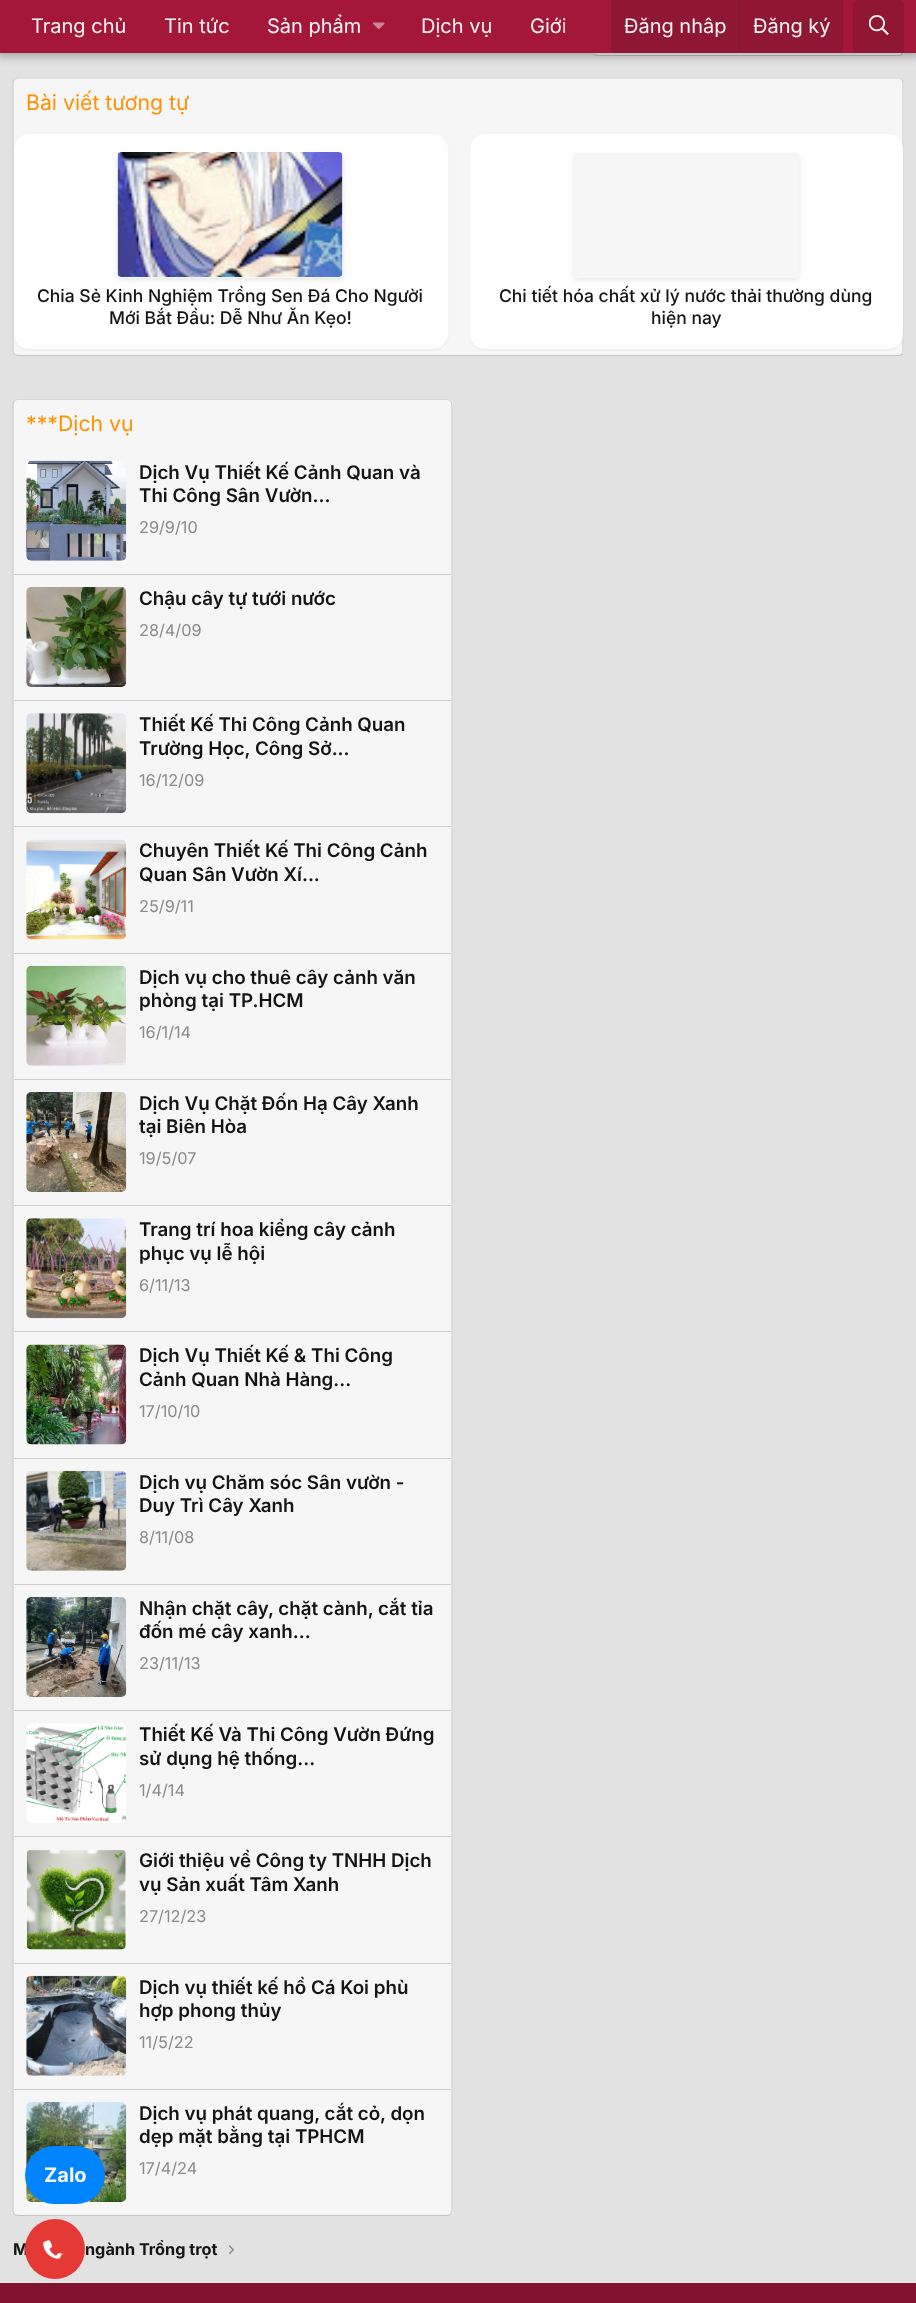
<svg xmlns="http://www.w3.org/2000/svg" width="916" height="2303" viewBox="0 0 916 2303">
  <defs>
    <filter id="blur1" x="-50%" y="-200%" width="200%" height="500%"><feGaussianBlur stdDeviation="5"/></filter>
    <linearGradient id="g1" gradientUnits="userSpaceOnUse" x1="561" y1="26" x2="611" y2="26"><stop offset="0" stop-color="#a51739" stop-opacity="0"/><stop offset="0.33" stop-color="#a51739"/></linearGradient>
    <filter id="blur2" x="-50%" y="-200%" width="200%" height="500%"><feGaussianBlur stdDeviation="1"/></filter>
    <filter id="blur3" x="-50%" y="-200%" width="200%" height="500%"><feGaussianBlur stdDeviation="2.5"/></filter>
  </defs>
  <rect width="100%" height="100%" fill="#e2e2e2"/>
  <rect x="593" y="15" width="311" height="41" rx="5" fill="#f6f6f6"/>
  <path d="M902 17C904 19 903 23 903 25V46C903 49 904 54 900 55.5H597.5L594.5 54.5" fill="none" stroke="#c0c0c0" stroke-width="1.2"/>
  <path d="M594.5 54.5C592.5 52.5 593 48.5 593 46V25C593 22 592 17 596 16L899 15.5L902 17" fill="none" stroke="#dadada" stroke-width="1.2"/>
  <rect x="-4" y="-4" width="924" height="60" fill="#000000" fill-opacity="0.3" filter="url(#blur1)"/>
  <rect x="0" y="0" width="916" height="53" fill="#a51739"/>
  <text x="31" y="33" font-family="Inter" font-size="20" fill="#f6f6f6">Trang chủ</text>
  <text x="164" y="33" font-family="Inter" font-size="20" fill="#f6f6f6">Tin tức</text>
  <text x="267" y="33" font-family="Inter" font-size="20" fill="#f6f6f6">Sản phẩm</text>
  <image x="373" y="22" width="12" height="7" href="img1.png"/>
  <text x="421" y="33" font-family="Inter" font-size="20" fill="#f6f6f6">Dịch vụ</text>
  <text x="530" y="33" font-family="Inter" font-size="20" fill="#f6f6f6">Giới</text>
  <rect x="563" y="18" width="3" height="15" fill="url(#g1)"/>
  <rect x="611" y="0" width="232" height="53" fill="#8f1733"/>
  <text x="624" y="33" font-family="Inter" font-size="20" fill="#f6f6f6">Đăng nhâp</text>
  <rect x="739" y="0" width="1" height="53" fill="#7d172e"/>
  <text x="753" y="33" font-family="Inter" font-size="20" fill="#f6f6f6">Đăng ký</text>
  <path d="M858 0H899C902 0 904 2 904 5V53H853V5C853 2 855 0 858 0Z" fill="#8f1733"/>
  <image x="869" y="15" width="20" height="20" href="img2.png"/>
  <rect x="13" y="78" width="891" height="278" rx="5" fill="#f6f6f6"/>
  <path d="M14.5 79.5L17.5 78H899L902 79.5" fill="none" stroke="#d7d7d7" stroke-width="1.2"/>
  <path d="M902 79.5C902.5 80 903 81.5 903 82.5V351C903 352.5 902.5 353.5 902 354.5" fill="none" stroke="#cdcdcd" stroke-width="1.2"/>
  <path d="M902 354.5L899 355.5H17.5L14.5 354.5" fill="none" stroke="#c3c3c3" stroke-width="1.2"/>
  <path d="M14.5 354.5C13.5 353.5 13 352.5 13 351V82.5C13 81.5 13.5 80 14.5 79.5" fill="none" stroke="#cdcdcd" stroke-width="1.2"/>
  <text x="26" y="110" font-family="Inter" font-size="21.25" fill="#ff9100">Bài viết tương tự</text>
  <rect x="14" y="135" width="434" height="215" rx="15" fill="#000000" fill-opacity="0.05" filter="url(#blur2)"/>
  <rect x="14" y="134" width="434" height="215" rx="15" fill="#ffffff"/>
  <rect x="118" y="155" width="225" height="125" rx="4" fill="#000000" fill-opacity="0.1" filter="url(#blur3)"/>
  <rect x="118" y="153" width="225" height="125" rx="4" fill="#f6f6f6"/>
  <image x="117" y="152" width="226" height="125" href="img3.png"/>
  <text x="37" y="302" font-family="Inter" font-size="17.5" font-weight="500" fill="#141414">Chia Sẻ Kinh Nghiệm Trồng Sen Đá Cho Người</text>
  <text x="109" y="324" font-family="Inter" font-size="17.5" font-weight="500" fill="#141414">Mới Bắt Đầu: Dễ Như Ăn Kẹo!</text>
  <rect x="470" y="135" width="433" height="215" rx="15" fill="#000000" fill-opacity="0.05" filter="url(#blur2)"/>
  <rect x="470" y="134" width="433" height="215" rx="15" fill="#ffffff"/>
  <rect x="574" y="155" width="225" height="125" rx="4" fill="#000000" fill-opacity="0.1" filter="url(#blur3)"/>
  <rect x="574" y="153" width="225" height="125" rx="4" fill="#f6f6f6"/>
  <text x="499" y="302" font-family="Inter" font-size="17.5" font-weight="500" fill="#141414">Chi tiết hóa chất xử lý nước thải thường dùng</text>
  <text x="651" y="324" font-family="Inter" font-size="17.5" font-weight="500" fill="#141414">hiện nay</text>
  <rect x="13" y="399" width="440" height="1817" rx="5" fill="#f6f6f6"/>
  <path d="M14.5 400.5L17.5 399.5H447.5L450.5 400.5" fill="none" stroke="#d7d7d7" stroke-width="1.2"/>
  <path d="M450.5 400.5L452 404V2211L450.5 2214.5" fill="none" stroke="#cdcdcd" stroke-width="1.2"/>
  <path d="M450.5 2214.5L447.5 2215.5H17.5L14.5 2214.5" fill="none" stroke="#c3c3c3" stroke-width="1.2"/>
  <path d="M14.5 2214.5L13 2211V404L14.5 400.5" fill="none" stroke="#cdcdcd" stroke-width="1.2"/>
  <text x="26" y="431" font-family="Inter" font-size="21.25" fill="#ff9100">***Dịch vụ</text>
  <rect x="14" y="574" width="437" height="1" fill="#cdcdcd"/>
  <image x="26" y="460" width="101" height="101" href="img4.png"/>
  <text x="139" y="479" font-family="Inter" font-size="18.75" font-weight="600" fill="#141414">Dịch Vụ Thiết Kế Cảnh Quan và</text>
  <text x="139" y="502" font-family="Inter" font-size="18.75" font-weight="600" fill="#141414">Thi Công Sân Vườn...</text>
  <text x="139" y="533" font-family="Inter" font-size="16.25" fill="#8a8a8a">29/9/10</text>
  <rect x="14" y="700" width="437" height="1" fill="#cdcdcd"/>
  <image x="26" y="587" width="101" height="100" href="img5.png"/>
  <text x="139" y="605" font-family="Inter" font-size="18.75" font-weight="600" fill="#141414">Chậu cây tự tưới nước</text>
  <text x="139" y="636" font-family="Inter" font-size="16.25" fill="#8a8a8a">28/4/09</text>
  <rect x="14" y="826" width="437" height="1" fill="#cdcdcd"/>
  <image x="26" y="713" width="101" height="101" href="img6.png"/>
  <text x="139" y="731" font-family="Inter" font-size="18.75" font-weight="600" fill="#141414">Thiết Kế Thi Công Cảnh Quan</text>
  <text x="139" y="755" font-family="Inter" font-size="18.75" font-weight="600" fill="#141414">Trường Học, Công Sở...</text>
  <text x="139" y="786" font-family="Inter" font-size="16.25" fill="#8a8a8a">16/12/09</text>
  <rect x="14" y="953" width="437" height="1" fill="#cdcdcd"/>
  <image x="26" y="839" width="101" height="101" href="img7.png"/>
  <text x="139" y="857" font-family="Inter" font-size="18.75" font-weight="600" fill="#141414">Chuyên Thiết Kế Thi Công Cảnh</text>
  <text x="139" y="881" font-family="Inter" font-size="18.75" font-weight="600" fill="#141414">Quan Sân Vườn Xí...</text>
  <text x="139" y="912" font-family="Inter" font-size="16.25" fill="#8a8a8a">25/9/11</text>
  <rect x="14" y="1079" width="437" height="1" fill="#cdcdcd"/>
  <image x="26" y="965" width="101" height="101" href="img8.png"/>
  <text x="139" y="984" font-family="Inter" font-size="18.75" font-weight="600" fill="#141414">Dịch vụ cho thuê cây cảnh văn</text>
  <text x="139" y="1007" font-family="Inter" font-size="18.75" font-weight="600" fill="#141414">phòng tại TP.HCM</text>
  <text x="139" y="1038" font-family="Inter" font-size="16.25" fill="#8a8a8a">16/1/14</text>
  <rect x="14" y="1205" width="437" height="1" fill="#cdcdcd"/>
  <image x="26" y="1092" width="101" height="100" href="img9.png"/>
  <text x="139" y="1110" font-family="Inter" font-size="18.75" font-weight="600" fill="#141414">Dịch Vụ Chặt Đốn Hạ Cây Xanh</text>
  <text x="139" y="1133" font-family="Inter" font-size="18.75" font-weight="600" fill="#141414">tại Biên Hòa</text>
  <text x="139" y="1164" font-family="Inter" font-size="16.25" fill="#8a8a8a">19/5/07</text>
  <rect x="14" y="1331" width="437" height="1" fill="#cdcdcd"/>
  <image x="26" y="1218" width="101" height="101" href="img10.png"/>
  <text x="139" y="1236" font-family="Inter" font-size="18.75" font-weight="600" fill="#141414">Trang trí hoa kiểng cây cảnh</text>
  <text x="139" y="1260" font-family="Inter" font-size="18.75" font-weight="600" fill="#141414">phục vụ lễ hội</text>
  <text x="139" y="1291" font-family="Inter" font-size="16.25" fill="#8a8a8a">6/11/13</text>
  <rect x="14" y="1458" width="437" height="1" fill="#cdcdcd"/>
  <image x="26" y="1344" width="101" height="101" href="img11.png"/>
  <text x="139" y="1362" font-family="Inter" font-size="18.75" font-weight="600" fill="#141414">Dịch Vụ Thiết Kế &amp; Thi Công</text>
  <text x="139" y="1386" font-family="Inter" font-size="18.75" font-weight="600" fill="#141414">Cảnh Quan Nhà Hàng...</text>
  <text x="139" y="1417" font-family="Inter" font-size="16.25" fill="#8a8a8a">17/10/10</text>
  <rect x="14" y="1584" width="437" height="1" fill="#cdcdcd"/>
  <image x="26" y="1470" width="101" height="101" href="img12.png"/>
  <text x="139" y="1489" font-family="Inter" font-size="18.75" font-weight="600" fill="#141414">Dịch vụ Chăm sóc Sân vườn -</text>
  <text x="139" y="1512" font-family="Inter" font-size="18.75" font-weight="600" fill="#141414">Duy Trì Cây Xanh</text>
  <text x="139" y="1543" font-family="Inter" font-size="16.25" fill="#8a8a8a">8/11/08</text>
  <rect x="14" y="1710" width="437" height="1" fill="#cdcdcd"/>
  <image x="26" y="1597" width="101" height="100" href="img13.png"/>
  <text x="139" y="1615" font-family="Inter" font-size="18.75" font-weight="600" fill="#141414">Nhận chặt cây, chặt cành, cắt tỉa</text>
  <text x="139" y="1638" font-family="Inter" font-size="18.75" font-weight="600" fill="#141414">đốn mé cây xanh...</text>
  <text x="139" y="1669" font-family="Inter" font-size="16.25" fill="#8a8a8a">23/11/13</text>
  <rect x="14" y="1836" width="437" height="1" fill="#cdcdcd"/>
  <image x="26" y="1723" width="101" height="100" href="img14.png"/>
  <text x="139" y="1741" font-family="Inter" font-size="18.75" font-weight="600" fill="#141414">Thiết Kế Và Thi Công Vườn Đứng</text>
  <text x="139" y="1765" font-family="Inter" font-size="18.75" font-weight="600" fill="#141414">sử dụng hệ thống...</text>
  <text x="139" y="1796" font-family="Inter" font-size="16.25" fill="#8a8a8a">1/4/14</text>
  <rect x="14" y="1963" width="437" height="1" fill="#cdcdcd"/>
  <image x="26" y="1849" width="100" height="101" href="img15.png"/>
  <text x="139" y="1867" font-family="Inter" font-size="18.75" font-weight="600" fill="#141414">Giới thiệu về Công ty TNHH Dịch</text>
  <text x="139" y="1891" font-family="Inter" font-size="18.75" font-weight="600" fill="#141414">vụ Sản xuất Tâm Xanh</text>
  <text x="139" y="1922" font-family="Inter" font-size="16.25" fill="#8a8a8a">27/12/23</text>
  <rect x="14" y="2089" width="437" height="1" fill="#cdcdcd"/>
  <image x="26" y="1975" width="101" height="101" href="img16.png"/>
  <text x="139" y="1994" font-family="Inter" font-size="18.75" font-weight="600" fill="#141414">Dịch vụ thiết kế hồ Cá Koi phù</text>
  <text x="139" y="2017" font-family="Inter" font-size="18.75" font-weight="600" fill="#141414">hợp phong thủy</text>
  <text x="139" y="2048" font-family="Inter" font-size="16.25" fill="#8a8a8a">11/5/22</text>
  <image x="26" y="2102" width="101" height="100" href="img17.png"/>
  <text x="139" y="2120" font-family="Inter" font-size="18.75" font-weight="600" fill="#141414">Dịch vụ phát quang, cắt cỏ, dọn</text>
  <text x="139" y="2143" font-family="Inter" font-size="18.75" font-weight="600" fill="#141414">dẹp mặt bằng tại TPHCM</text>
  <text x="139" y="2174" font-family="Inter" font-size="16.25" fill="#8a8a8a">17/4/24</text>
  <text x="13" y="2255" font-family="Inter" font-size="16.25" font-weight="bold" fill="#141414">M</text>
  <text x="85" y="2255" font-family="Inter" font-size="16.25" font-weight="bold" fill="#141414">ngành Trồng trọt</text>
  <image x="229" y="2245" width="5" height="10" href="img18.png"/>
  <rect x="0" y="2283" width="916" height="20" fill="#81122d"/>
  <rect x="25" y="2146" width="80" height="58" rx="29" fill="#0084ff"/>
  <text x="44" y="2182" font-family="Inter" font-size="20" font-weight="bold" fill="#f6f6f6">Zalo</text>
  <circle cx="55" cy="2249" r="30" fill="#e53935"/>
  <image x="43" y="2240" width="21" height="19" href="img19.png"/>
</svg>
